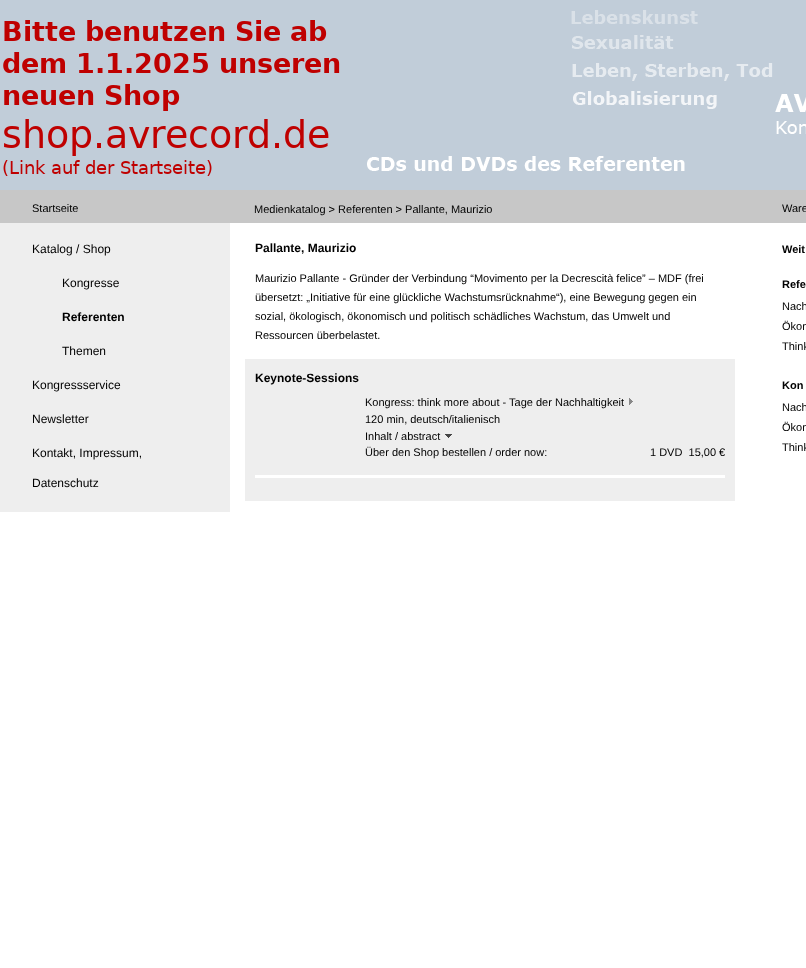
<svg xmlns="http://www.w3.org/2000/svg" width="806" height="968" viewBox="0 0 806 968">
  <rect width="100%" height="100%" fill="#ffffff"/>
  <rect x="0" y="0" width="806" height="190" fill="#c1cdd9"/>
  <image x="367" y="10" width="406" height="161" href="img1.png"/>
  <image x="3" y="20" width="803" height="156" href="img2.png"/>
  <rect x="0" y="190" width="806" height="33" fill="#c7c7c7"/>
  <text x="32" y="212" font-family="Liberation Sans" font-size="11" fill="#000000">Startseite</text>
  <text x="254" y="213" font-family="Liberation Sans" font-size="11" fill="#000000">Medienkatalog &gt; Referenten &gt; Pallante, Maurizio</text>
  <text x="782" y="212" font-family="Liberation Sans" font-size="11" fill="#000000">Ware</text>
  <rect x="0" y="223" width="230" height="289" fill="#eeeeee"/>
  <text x="32" y="253" font-family="Liberation Sans" font-size="12" fill="#000000">Katalog / Shop</text>
  <text x="62" y="287" font-family="Liberation Sans" font-size="12" fill="#000000">Kongresse</text>
  <text x="62" y="321" font-family="Liberation Sans" font-size="12" font-weight="bold" fill="#000000">Referenten</text>
  <text x="62" y="355" font-family="Liberation Sans" font-size="12" fill="#000000">Themen</text>
  <text x="32" y="389" font-family="Liberation Sans" font-size="12" fill="#000000">Kongressservice</text>
  <text x="32" y="423" font-family="Liberation Sans" font-size="12" fill="#000000">Newsletter</text>
  <text x="32" y="457" font-family="Liberation Sans" font-size="12" fill="#000000">Kontakt, Impressum,</text>
  <text x="32" y="487" font-family="Liberation Sans" font-size="12" fill="#000000">Datenschutz</text>
  <text x="255" y="252" font-family="Liberation Sans" font-size="12" font-weight="bold" fill="#000000">Pallante, Maurizio</text>
  <text x="255" y="282" font-family="Liberation Sans" font-size="11" fill="#000000">Maurizio Pallante - Gründer der Verbindung “Movimento per la Decrescità felice” – MDF (frei</text>
  <text x="255" y="301" font-family="Liberation Sans" font-size="11" fill="#000000">übersetzt: „Initiative für eine glückliche Wachstumsrücknahme“), eine Bewegung gegen ein</text>
  <text x="255" y="320" font-family="Liberation Sans" font-size="11" fill="#000000">sozial, ökologisch, ökonomisch und politisch schädliches Wachstum, das Umwelt und</text>
  <text x="255" y="339" font-family="Liberation Sans" font-size="11" fill="#000000">Ressourcen überbelastet.</text>
  <rect x="245" y="359" width="490" height="142" fill="#eeeeee"/>
  <text x="255" y="382" font-family="Liberation Sans" font-size="12" font-weight="bold" fill="#000000">Keynote-Sessions</text>
  <text x="365" y="406" font-family="Liberation Sans" font-size="11" fill="#000000">Kongress: think more about - Tage der Nachhaltigkeit</text>
  <image x="629" y="398" width="4" height="7" href="img3.png"/>
  <text x="365" y="423" font-family="Liberation Sans" font-size="11" fill="#000000">120 min, deutsch/italienisch</text>
  <text x="365" y="440" font-family="Liberation Sans" font-size="11" fill="#000000">Inhalt / abstract</text>
  <image x="445" y="434" width="7" height="4" href="img4.png"/>
  <text x="365" y="456" font-family="Liberation Sans" font-size="11" fill="#000000">Über den Shop bestellen / order now:</text>
  <text x="650" y="456" font-family="Liberation Sans" font-size="11" fill="#000000" xml:space="preserve">1 DVD  15,00 €</text>
  <rect x="255" y="475" width="470" height="3" fill="#ffffff"/>
  <text x="782" y="253" font-family="Liberation Sans" font-size="11" font-weight="bold" fill="#000000">Weit</text>
  <text x="782" y="288" font-family="Liberation Sans" font-size="11" font-weight="bold" fill="#000000">Refe</text>
  <text x="782" y="310" font-family="Liberation Sans" font-size="11" fill="#000000">Nach</text>
  <text x="782" y="330" font-family="Liberation Sans" font-size="11" fill="#000000">Ökon</text>
  <text x="782" y="350" font-family="Liberation Sans" font-size="11" fill="#000000">Think</text>
  <text x="782" y="389" font-family="Liberation Sans" font-size="11" font-weight="bold" fill="#000000">Kon</text>
  <text x="782" y="411" font-family="Liberation Sans" font-size="11" fill="#000000">Nach</text>
  <text x="782" y="431" font-family="Liberation Sans" font-size="11" fill="#000000">Ökon</text>
  <text x="782" y="451" font-family="Liberation Sans" font-size="11" fill="#000000">Think</text>
</svg>
